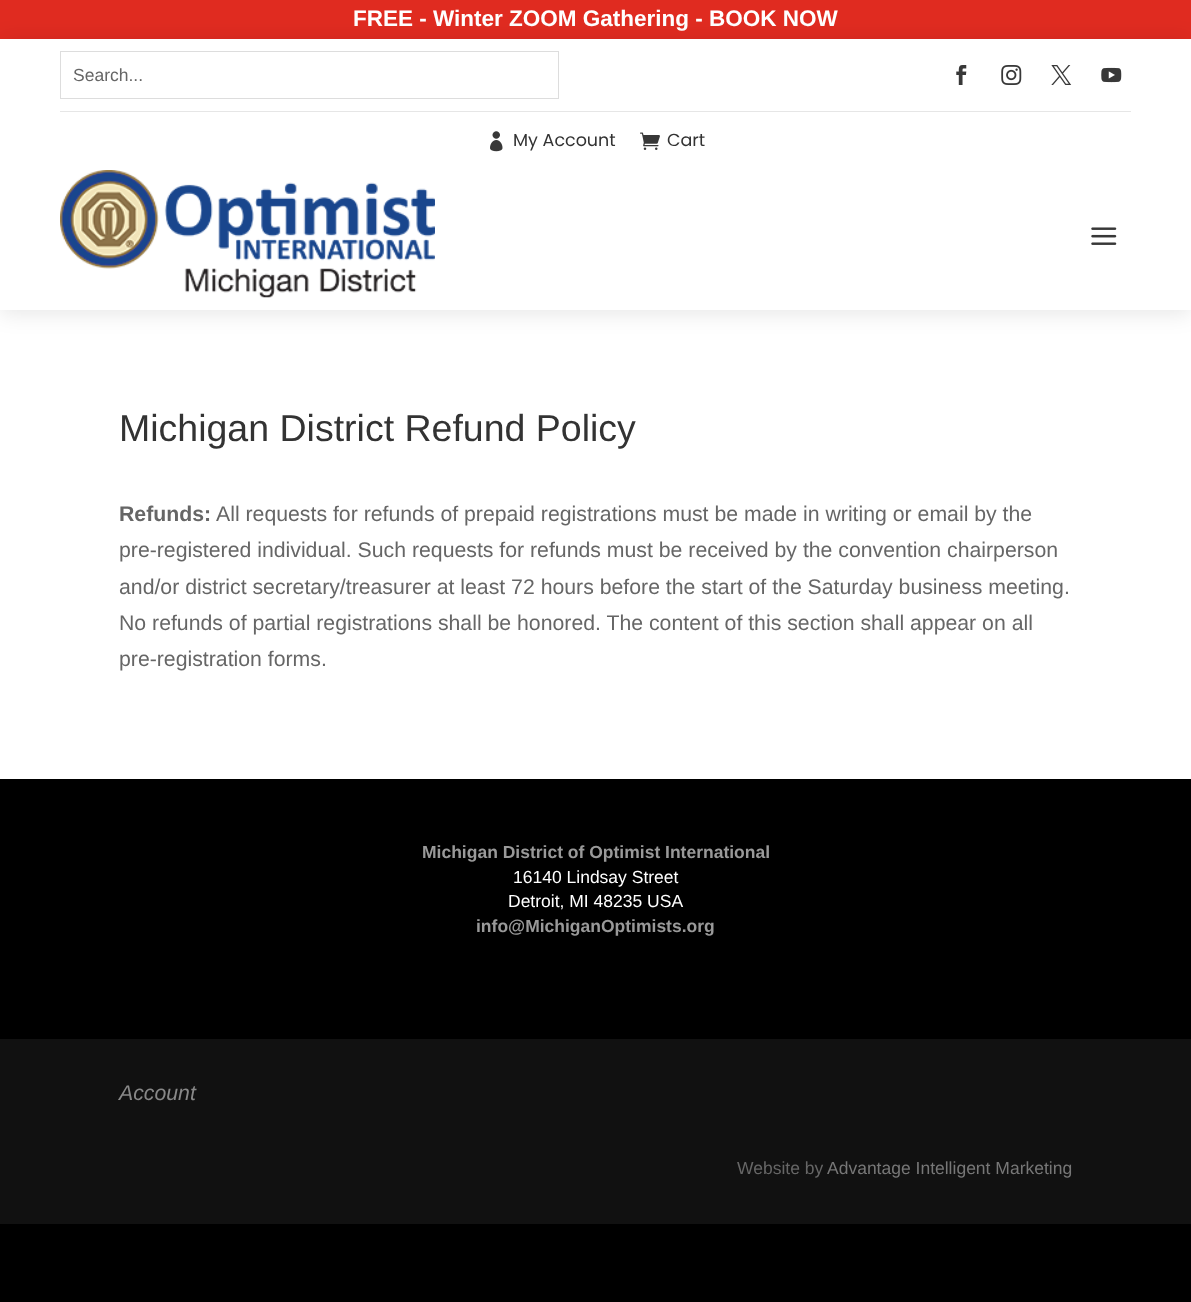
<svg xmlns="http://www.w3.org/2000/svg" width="1191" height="1302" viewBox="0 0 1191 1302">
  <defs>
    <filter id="blur1" x="-50%" y="-200%" width="200%" height="500%"><feGaussianBlur stdDeviation="11"/></filter>
  </defs>
  <rect width="100%" height="100%" fill="#000000"/>
  <rect x="0" y="0" width="1191" height="39" fill="#e02b20"/>
  <text x="353" y="26" font-family="Liberation Sans" font-size="22.5" font-weight="bold" fill="#ffffff">FREE - Winter ZOOM Gathering - BOOK NOW</text>
  <rect x="0" y="310" width="1191" height="469" fill="#ffffff"/>
  <rect x="0" y="41" width="1191" height="272" fill="#000000" fill-opacity="0.1" filter="url(#blur1)"/>
  <rect x="0" y="39" width="1191" height="271" fill="#ffffff"/>
  <rect x="60" y="111" width="1071" height="1" fill="#e6e6e6"/>
  <rect x="60.5" y="51.5" width="498" height="47" fill="none" stroke="#dddddd"/>
  <text x="73" y="81" font-family="Liberation Sans" font-size="17.5" fill="#666666">Search...</text>
  <image x="956" y="65" width="11" height="20" href="img1.png"/>
  <image x="1001" y="65" width="21" height="20" href="img2.png"/>
  <image x="1051" y="65" width="21" height="20" href="img3.png"/>
  <image x="1101" y="67" width="21" height="16" href="img4.png"/>
  <image x="490" y="131" width="13" height="21" href="img5.png"/>
  <text x="513" y="146" font-family="Poppins" font-size="17.5" fill="#333333">My Account</text>
  <image x="640" y="132" width="20" height="18" href="img6.png"/>
  <text x="667" y="146" font-family="Poppins" font-size="17.5" fill="#333333">Cart</text>
  <image x="60" y="170" width="375" height="128" href="img7.png"/>
  <image x="1091" y="227" width="26" height="18" href="img8.png"/>
  <text x="119" y="441" font-family="Liberation Sans" font-size="37.5" fill="#333333">Michigan District Refund Policy</text>
  <text x="119" y="521" font-family="Liberation Sans" font-size="21.25" font-weight="bold" fill="#666666">Refunds:</text>
  <text x="216" y="521" font-family="Liberation Sans" font-size="21.25" fill="#666666">All requests for refunds of prepaid registrations must be made in writing or email by the</text>
  <text x="119" y="557" font-family="Liberation Sans" font-size="21.25" fill="#666666">pre-registered individual. Such requests for refunds must be received by the convention chairperson</text>
  <text x="119" y="594" font-family="Liberation Sans" font-size="21.25" fill="#666666">and/or district secretary/treasurer at least 72 hours before the start of the Saturday business meeting.</text>
  <text x="119" y="630" font-family="Liberation Sans" font-size="21.25" fill="#666666">No refunds of partial registrations shall be honored. The content of this section shall appear on all</text>
  <text x="119" y="666" font-family="Liberation Sans" font-size="21.25" fill="#666666">pre-registration forms.</text>
  <text x="422" y="858" font-family="Liberation Sans" font-size="17.5" font-weight="bold" fill="#999999">Michigan District of Optimist International</text>
  <text x="513" y="883" font-family="Liberation Sans" font-size="17.5" fill="#ffffff">16140 Lindsay Street</text>
  <text x="508" y="907" font-family="Liberation Sans" font-size="17.5" fill="#ffffff">Detroit, MI 48235 USA</text>
  <text x="476" y="932" font-family="Liberation Sans" font-size="17.5" font-weight="bold" fill="#999999">info@MichiganOptimists.org</text>
  <rect x="0" y="1039" width="1191" height="185" fill="#111111"/>
  <text x="119" y="1100" font-family="Liberation Sans" font-size="21.25" font-style="italic" fill="#888888">Account</text>
  <text x="737" y="1174" font-family="Liberation Sans" font-size="17.5" fill="#666666">Website by</text>
  <text x="827" y="1174" font-family="Liberation Sans" font-size="17.5" fill="#777777">Advantage Intelligent Marketing</text>
</svg>
